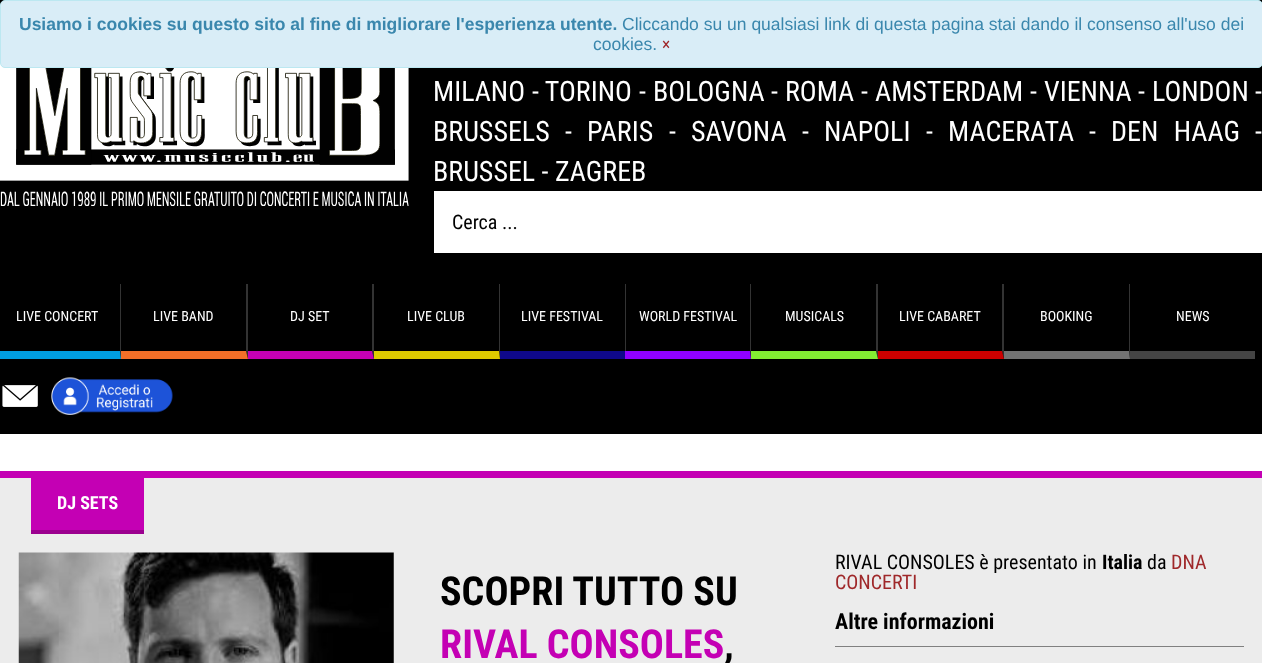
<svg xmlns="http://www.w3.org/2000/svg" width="1262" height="663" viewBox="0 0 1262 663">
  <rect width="100%" height="100%" fill="#ffffff"/>
  <rect x="0" y="0" width="1262" height="434" fill="#000000"/>
  <image x="0" y="63" width="409" height="143" href="img1.png"/>
  <rect x="0.5" y="0.5" width="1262" height="67" rx="4.5" fill="#d9edf7" stroke="#bce8f1"/>
  <text x="19" y="30" font-family="Liberation Sans" font-size="17.5" font-weight="bold" fill="#3a87ad">Usiamo i cookies su questo sito al fine di migliorare l'esperienza utente.</text>
  <text x="622" y="30" font-family="Liberation Sans" font-size="17.5" fill="#3a87ad">Cliccando su un qualsiasi link di questa pagina stai dando il consenso all'uso dei</text>
  <text x="593" y="50" font-family="Liberation Sans" font-size="17.5" fill="#3a87ad">cookies.</text>
  <text x="662" y="50" font-family="Roboto Condensed" font-size="17.5" fill="#9f282a">×</text>
  <text x="433" y="101" font-family="Roboto Condensed" font-size="28" fill="#ffffff">MILANO</text>
  <text x="532" y="101" font-family="Roboto Condensed" font-size="28" fill="#ffffff">- TORINO</text>
  <text x="639" y="101" font-family="Roboto Condensed" font-size="28" fill="#ffffff">-</text>
  <text x="653" y="101" font-family="Roboto Condensed" font-size="28" fill="#ffffff">BOLOGNA</text>
  <text x="771" y="101" font-family="Roboto Condensed" font-size="28" fill="#ffffff">-</text>
  <text x="785" y="101" font-family="Roboto Condensed" font-size="28" fill="#ffffff">ROMA</text>
  <text x="861" y="101" font-family="Roboto Condensed" font-size="28" fill="#ffffff">-</text>
  <text x="875" y="101" font-family="Roboto Condensed" font-size="28" fill="#ffffff">AMSTERDAM</text>
  <text x="1030" y="101" font-family="Roboto Condensed" font-size="28" fill="#ffffff">-</text>
  <text x="1044" y="101" font-family="Roboto Condensed" font-size="28" fill="#ffffff">VIENNA</text>
  <text x="1138" y="101" font-family="Roboto Condensed" font-size="28" fill="#ffffff">-</text>
  <text x="1152" y="101" font-family="Roboto Condensed" font-size="28" fill="#ffffff">LONDON</text>
  <text x="1255" y="101" font-family="Roboto Condensed" font-size="28" fill="#ffffff">-</text>
  <text x="433" y="141" font-family="Roboto Condensed" font-size="28" fill="#ffffff">BRUSSELS</text>
  <text x="565" y="141" font-family="Roboto Condensed" font-size="28" fill="#ffffff">-</text>
  <text x="587" y="141" font-family="Roboto Condensed" font-size="28" fill="#ffffff">PARIS</text>
  <text x="669" y="141" font-family="Roboto Condensed" font-size="28" fill="#ffffff">-</text>
  <text x="691" y="141" font-family="Roboto Condensed" font-size="28" fill="#ffffff">SAVONA</text>
  <text x="802" y="141" font-family="Roboto Condensed" font-size="28" fill="#ffffff">-</text>
  <text x="824" y="141" font-family="Roboto Condensed" font-size="28" fill="#ffffff">NAPOLI</text>
  <text x="926" y="141" font-family="Roboto Condensed" font-size="28" fill="#ffffff">-</text>
  <text x="948" y="141" font-family="Roboto Condensed" font-size="28" fill="#ffffff">MACERATA</text>
  <text x="1089" y="141" font-family="Roboto Condensed" font-size="28" fill="#ffffff">-</text>
  <text x="1111" y="141" word-spacing="9" font-family="Roboto Condensed" font-size="28" fill="#ffffff">DEN HAAG</text>
  <text x="1255" y="141" font-family="Roboto Condensed" font-size="28" fill="#ffffff">-</text>
  <text x="433" y="181" font-family="Roboto Condensed" font-size="28" fill="#ffffff">BRUSSEL - ZAGREB</text>
  <rect x="434" y="191" width="828" height="62" fill="#ffffff"/>
  <text x="452" y="229" font-family="Roboto Condensed" font-size="20" fill="#000000">Cerca ...</text>
  <path d="M121 284V359L120 351V284Z" fill="#333333"/>
  <path d="M121 359H-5V351H120Z" fill="#009ddf"/>
  <text x="16" y="321" font-family="Roboto Condensed" font-size="14" fill="#ffffff">LIVE CONCERT</text>
  <path d="M248 284V359L246 351V284Z" fill="#333333"/>
  <path d="M248 359H121V351H246Z" fill="#f36f28"/>
  <text x="153" y="321" font-family="Roboto Condensed" font-size="14" fill="#ffffff">LIVE BAND</text>
  <path d="M374 284V359L372 351V284Z" fill="#333333"/>
  <path d="M374 359H248V351H372Z" fill="#c400b4"/>
  <text x="290" y="321" font-family="Roboto Condensed" font-size="14" fill="#ffffff">DJ SET</text>
  <path d="M500 284V359L499 351V284Z" fill="#333333"/>
  <path d="M500 359H374V351H499Z" fill="#decb00"/>
  <text x="407" y="321" font-family="Roboto Condensed" font-size="14" fill="#ffffff">LIVE CLUB</text>
  <path d="M626 284V359L625 351V284Z" fill="#333333"/>
  <path d="M626 359H500V351H625Z" fill="#0f088a"/>
  <text x="521" y="321" font-family="Roboto Condensed" font-size="14" fill="#ffffff">LIVE FESTIVAL</text>
  <path d="M751 284V359L750 351V284Z" fill="#333333"/>
  <path d="M751 359H625V351H750Z" fill="#9000ff"/>
  <text x="639" y="321" font-family="Roboto Condensed" font-size="14" fill="#ffffff">WORLD FESTIVAL</text>
  <path d="M878 284V359L876 351V284Z" fill="#333333"/>
  <path d="M878 359H751V351H876Z" fill="#83ed33"/>
  <text x="785" y="321" font-family="Roboto Condensed" font-size="14" fill="#ffffff">MUSICALS</text>
  <path d="M1004 284V359L1002 351V284Z" fill="#333333"/>
  <path d="M1004 359H878V351H1002Z" fill="#cc0000"/>
  <text x="899" y="321" font-family="Roboto Condensed" font-size="14" fill="#ffffff">LIVE CABARET</text>
  <path d="M1130 284V359L1129 351V284Z" fill="#333333"/>
  <path d="M1130 359H1004V351H1129Z" fill="#737373"/>
  <text x="1040" y="321" font-family="Roboto Condensed" font-size="14" fill="#ffffff">BOOKING</text>
  <rect x="1130" y="351" width="125" height="8" fill="#444444"/>
  <text x="1176" y="321" font-family="Roboto Condensed" font-size="14" fill="#ffffff">NEWS</text>
  <image x="2" y="385" width="36" height="22" href="img2.png"/>
  <image x="51" y="377" width="122" height="38" href="img3.png"/>
  <rect x="0" y="478" width="1262" height="185" fill="#ececec"/>
  <rect x="0" y="471" width="1262" height="7" fill="#c400b4"/>
  <rect x="31" y="478" width="113" height="52" fill="#c400b4"/>
  <rect x="31" y="530" width="113" height="4" fill="#9b008f"/>
  <text x="57" y="509" font-family="Roboto Condensed" font-size="18" font-weight="bold" fill="#ffffff">DJ SETS</text>
  <image x="18" y="552" width="376" height="111" href="img4.png"/>
  <text x="440" y="605" font-family="Roboto Condensed" font-size="40" font-weight="bold" fill="#000000">SCOPRI TUTTO SU</text>
  <text x="440" y="658" font-family="Roboto Condensed" font-size="40" font-weight="bold" fill="#c400b4">RIVAL CONSOLES</text>
  <text x="724" y="658" font-family="Roboto Condensed" font-size="40" font-weight="bold" fill="#000000">,</text>
  <text x="835" y="569" font-family="Roboto Condensed" font-size="20" fill="#000000">RIVAL CONSOLES è presentato in</text>
  <text x="1102" y="569" font-family="Roboto Condensed" font-size="20" font-weight="bold" fill="#000000">Italia</text>
  <text x="1147" y="569" font-family="Roboto Condensed" font-size="20" fill="#000000">da</text>
  <text x="1171" y="569" font-family="Roboto Condensed" font-size="20" fill="#9f282a">DNA</text>
  <text x="835" y="589" font-family="Roboto Condensed" font-size="20" fill="#9f282a">CONCERTI</text>
  <text x="835" y="629" font-family="Roboto Condensed" font-size="22" font-weight="bold" fill="#000000">Altre informazioni</text>
  <rect x="835" y="646" width="409" height="1" fill="#808080"/>
</svg>
